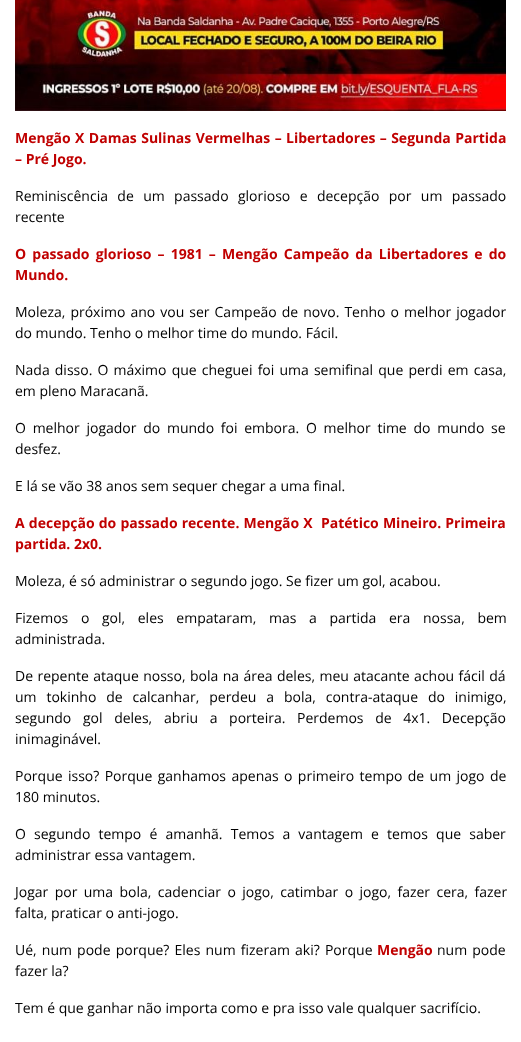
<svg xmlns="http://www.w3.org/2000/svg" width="521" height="1042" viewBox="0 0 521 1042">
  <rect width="100%" height="100%" fill="#ffffff"/>
  <image x="15" y="0" width="491" height="111" href="img1.png"/>
  <text x="15" y="143" word-spacing="0.75" font-family="Open Sans" font-size="14" font-weight="bold" fill="#c00000">Mengão X Damas Sulinas Vermelhas – Libertadores – Segunda Partida</text>
  <text x="15" y="164" font-family="Open Sans" font-size="14" font-weight="bold" fill="#c00000">– Pré Jogo.</text>
  <text x="15" y="201" word-spacing="5.75" font-family="Open Sans" font-size="14" fill="#000000">Reminiscência de um passado glorioso e decepção por um passado</text>
  <text x="15" y="222" font-family="Open Sans" font-size="14" fill="#000000">recente</text>
  <text x="15" y="259" word-spacing="2.5" font-family="Open Sans" font-size="14" font-weight="bold" fill="#c00000">O passado glorioso – 1981 – Mengão Campeão da Libertadores e do</text>
  <text x="15" y="280" font-family="Open Sans" font-size="14" font-weight="bold" fill="#c00000">Mundo.</text>
  <text x="15" y="317" word-spacing="1.4" font-family="Open Sans" font-size="14" fill="#000000">Moleza, próximo ano vou ser Campeão de novo. Tenho o melhor jogador</text>
  <text x="15" y="338" font-family="Open Sans" font-size="14" fill="#000000">do mundo. Tenho o melhor time do mundo. Fácil.</text>
  <text x="15" y="375" word-spacing="1.5" font-family="Open Sans" font-size="14" fill="#000000">Nada disso. O máximo que cheguei foi uma semifinal que perdi em casa,</text>
  <text x="15" y="396" font-family="Open Sans" font-size="14" fill="#000000">em pleno Maracanã.</text>
  <text x="15" y="433" word-spacing="3.1" font-family="Open Sans" font-size="14" fill="#000000">O melhor jogador do mundo foi embora. O melhor time do mundo se</text>
  <text x="15" y="454" font-family="Open Sans" font-size="14" fill="#000000">desfez.</text>
  <text x="15" y="491" font-family="Open Sans" font-size="14" fill="#000000">E lá se vão 38 anos sem sequer chegar a uma final.</text>
  <text x="15" y="528" word-spacing="0.5" font-family="Open Sans" font-size="14" font-weight="bold" fill="#c00000" xml:space="preserve">A decepção do passado recente. Mengão X  Patético Mineiro. Primeira</text>
  <text x="15" y="549" font-family="Open Sans" font-size="14" font-weight="bold" fill="#c00000">partida. 2x0.</text>
  <text x="15" y="586" font-family="Open Sans" font-size="14" fill="#000000">Moleza, é só administrar o segundo jogo. Se fizer um gol, acabou.</text>
  <text x="15" y="623" word-spacing="9" font-family="Open Sans" font-size="14" fill="#000000">Fizemos o gol, eles empataram, mas a partida era nossa, bem</text>
  <text x="15" y="644" font-family="Open Sans" font-size="14" fill="#000000">administrada.</text>
  <text x="15" y="681" word-spacing="0.75" font-family="Open Sans" font-size="14" fill="#000000">De repente ataque nosso, bola na área deles, meu atacante achou fácil dá</text>
  <text x="15" y="702" word-spacing="6.25" font-family="Open Sans" font-size="14" fill="#000000">um tokinho de calcanhar, perdeu a bola, contra-ataque do inimigo,</text>
  <text x="15" y="723" word-spacing="8" font-family="Open Sans" font-size="14" fill="#000000">segundo gol deles, abriu a porteira. Perdemos de 4x1. Decepção</text>
  <text x="15" y="744" font-family="Open Sans" font-size="14" fill="#000000">inimaginável.</text>
  <text x="15" y="781" word-spacing="1.75" font-family="Open Sans" font-size="14" fill="#000000">Porque isso? Porque ganhamos apenas o primeiro tempo de um jogo de</text>
  <text x="15" y="802" font-family="Open Sans" font-size="14" fill="#000000">180 minutos.</text>
  <text x="15" y="839" word-spacing="4.5" font-family="Open Sans" font-size="14" fill="#000000">O segundo tempo é amanhã. Temos a vantagem e temos que saber</text>
  <text x="15" y="860" font-family="Open Sans" font-size="14" fill="#000000">administrar essa vantagem.</text>
  <text x="15" y="897" word-spacing="2.75" font-family="Open Sans" font-size="14" fill="#000000">Jogar por uma bola, cadenciar o jogo, catimbar o jogo, fazer cera, fazer</text>
  <text x="15" y="918" font-family="Open Sans" font-size="14" fill="#000000">falta, praticar o anti-jogo.</text>
  <text x="15" y="955" word-spacing="1.5" font-family="Open Sans" font-size="14" fill="#000000">Ué, num pode porque? Eles num fizeram aki? Porque</text>
  <text x="377" y="955" font-family="Open Sans" font-size="14" font-weight="bold" fill="#c00000">Mengão</text>
  <text x="437" y="955" word-spacing="1.5" font-family="Open Sans" font-size="14" fill="#000000">num pode</text>
  <text x="15" y="976" font-family="Open Sans" font-size="14" fill="#000000">fazer la?</text>
  <text x="15" y="1013" font-family="Open Sans" font-size="14" fill="#000000">Tem é que ganhar não importa como e pra isso vale qualquer sacrifício.</text>
</svg>
